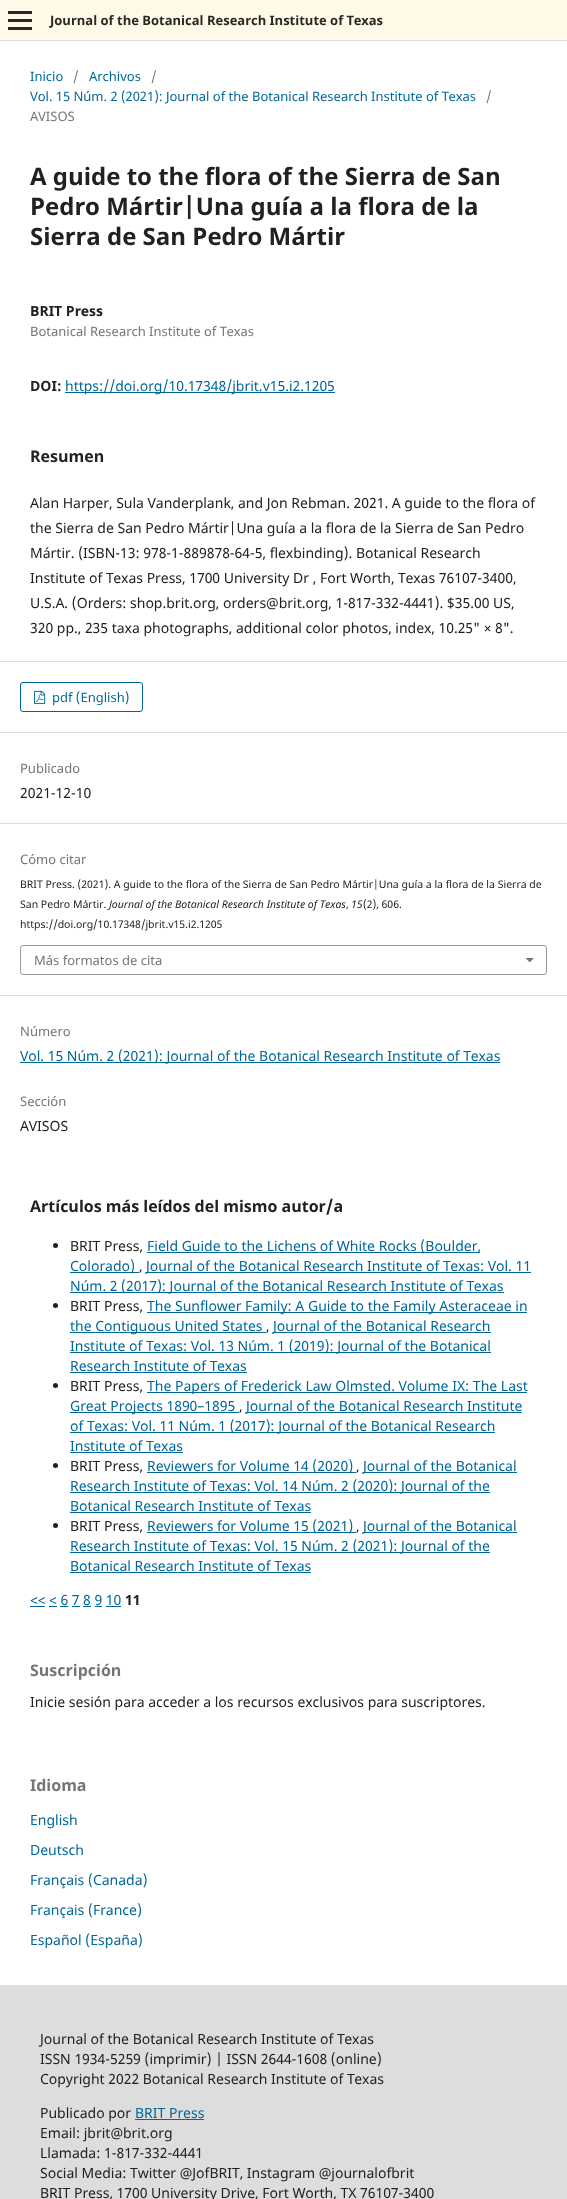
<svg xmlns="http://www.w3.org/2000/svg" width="567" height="2199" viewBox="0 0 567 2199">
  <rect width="100%" height="100%" fill="#ffffff"/>
  <rect x="0" y="0" width="567" height="40" fill="#fffae7"/>
  <rect x="0" y="40" width="567" height="1" fill="#dddddd"/>
  <rect x="40" y="0" width="1" height="40" fill="#fffbec"/>
  <rect x="8" y="27" width="24" height="3" fill="#292825"/>
  <rect x="8" y="11" width="24" height="3" fill="#292825"/>
  <rect x="8" y="19" width="24" height="3" fill="#292825"/>
  <text x="50" y="25" font-family="Noto Sans" font-size="13" font-weight="bold" fill="#292825">Journal of the Botanical Research Institute of Texas</text>
  <text x="30" y="81" font-family="Noto Sans" font-size="13" fill="#006798">Inicio</text>
  <text x="73" y="81" font-family="Noto Sans" font-size="13" fill="#757575">/</text>
  <text x="89" y="81" font-family="Noto Sans" font-size="13" fill="#006798">Archivos</text>
  <text x="151" y="81" font-family="Noto Sans" font-size="13" fill="#757575">/</text>
  <text x="30" y="101" font-family="Noto Sans" font-size="13" fill="#006798">Vol. 15 Núm. 2 (2021): Journal of the Botanical Research Institute of Texas</text>
  <text x="486" y="101" font-family="Noto Sans" font-size="13" fill="#757575">/</text>
  <text x="30" y="121" font-family="Noto Sans" font-size="13" fill="#757575">AVISOS</text>
  <text x="30" y="185" font-family="Noto Sans" font-size="24" font-weight="bold" fill="#212121">A guide to the flora of the Sierra de San</text>
  <text x="30" y="215" font-family="Noto Sans" font-size="24" font-weight="bold" fill="#212121">Pedro Mártir|Una guía a la flora de la</text>
  <text x="30" y="245" font-family="Noto Sans" font-size="24" font-weight="bold" fill="#212121">Sierra de San Pedro Mártir</text>
  <text x="30" y="316" font-family="Noto Sans" font-size="14" font-weight="bold" fill="#212121">BRIT Press</text>
  <text x="30" y="336" font-family="Noto Sans" font-size="13" fill="#757575">Botanical Research Institute of Texas</text>
  <text x="30" y="391" font-family="Noto Sans" font-size="14" font-weight="bold" fill="#212121">DOI:</text>
  <rect x="65" y="392" width="270" height="1" fill="#006798"/>
  <text x="65" y="391" font-family="Noto Sans" font-size="14" fill="#006798">https://doi.org/10.17348/jbrit.v15.i2.1205</text>
  <text x="30" y="462" font-family="Noto Sans" font-size="16" font-weight="bold" fill="#212121">Resumen</text>
  <text x="30" y="508" font-family="Noto Sans" font-size="14" fill="#212121">Alan Harper, Sula Vanderplank, and Jon Rebman. 2021. A guide to the flora of</text>
  <text x="30" y="533" font-family="Noto Sans" font-size="14" fill="#212121">the Sierra de San Pedro Mártir|Una guía a la flora de la Sierra de San Pedro</text>
  <text x="30" y="558" font-family="Noto Sans" font-size="14" fill="#212121">Mártir. (ISBN-13: 978-1-889878-64-5, flexbinding). Botanical Research</text>
  <text x="30" y="583" font-family="Noto Sans" font-size="14" fill="#212121">Institute of Texas Press, 1700 University Dr , Fort Worth, Texas 76107-3400,</text>
  <text x="30" y="608" font-family="Noto Sans" font-size="14" fill="#212121">U.S.A. (Orders: shop.brit.org, orders@brit.org, 1-817-332-4441). $35.00 US,</text>
  <text x="30" y="633" font-family="Noto Sans" font-size="14" fill="#212121">320 pp., 235 taxa photographs, additional color photos, index, 10.25" × 8".</text>
  <rect x="0" y="661" width="567" height="1" fill="#dddddd"/>
  <rect x="0" y="732" width="567" height="1" fill="#dddddd"/>
  <rect x="20.5" y="682.5" width="122" height="29" rx="2.5" fill="none" stroke="#006798"/>
  <image x="34" y="690" width="12" height="14" href="img1.png"/>
  <text x="52" y="702" font-family="Noto Sans" font-size="13" fill="#006798">pdf (English)</text>
  <rect x="0" y="823" width="567" height="1" fill="#dddddd"/>
  <text x="20" y="773" font-family="Noto Sans" font-size="13" fill="#757575">Publicado</text>
  <text x="20" y="798" font-family="Noto Sans" font-size="14" fill="#212121">2021-12-10</text>
  <rect x="0" y="995" width="567" height="1" fill="#dddddd"/>
  <text x="20" y="864" font-family="Noto Sans" font-size="13" fill="#757575">Cómo citar</text>
  <text x="20" y="888" font-family="Noto Sans" font-size="10.5" fill="#212121">BRIT Press. (2021). A guide to the flora of the Sierra de San Pedro Mártir|Una guía a la flora de la Sierra de</text>
  <text x="20" y="908" font-family="Noto Sans" font-size="10.5" fill="#212121">San Pedro Mártir.</text>
  <text x="109" y="908" font-family="Noto Sans" font-size="10.5" font-style="italic" fill="#212121">Journal of the Botanical Research Institute of Texas</text>
  <text x="346" y="908" font-family="Noto Sans" font-size="10.5" fill="#212121">,</text>
  <text x="351" y="908" font-family="Noto Sans" font-size="10.5" font-style="italic" fill="#212121">15</text>
  <text x="363" y="908" font-family="Noto Sans" font-size="10.5" fill="#212121">(2), 606.</text>
  <text x="20" y="928" font-family="Noto Sans" font-size="10.5" fill="#212121">https://doi.org/10.17348/jbrit.v15.i2.1205</text>
  <rect x="20.5" y="945.5" width="526" height="29" rx="2.5" fill="none" stroke="#999999"/>
  <text x="34" y="965" font-family="Noto Sans" font-size="13" fill="#757575">Más formatos de cita</text>
  <image x="526" y="958" width="8" height="5" href="img2.png"/>
  <text x="20" y="1036" font-family="Noto Sans" font-size="13" fill="#757575">Número</text>
  <rect x="20" y="1062" width="480" height="1" fill="#006798"/>
  <text x="20" y="1061" font-family="Noto Sans" font-size="14" fill="#006798">Vol. 15 Núm. 2 (2021): Journal of the Botanical Research Institute of Texas</text>
  <text x="20" y="1106" font-family="Noto Sans" font-size="13" fill="#757575">Sección</text>
  <text x="20" y="1131" font-family="Noto Sans" font-size="14" fill="#212121">AVISOS</text>
  <text x="30" y="1212" font-family="Noto Sans" font-size="16" font-weight="bold" fill="#212121">Artículos más leídos del mismo autor/a</text>
  <circle cx="55.5" cy="1245.5" r="2.5" fill="#212121"/>
  <text x="70" y="1251" font-family="Noto Sans" font-size="14" fill="#212121">BRIT Press,</text>
  <rect x="147" y="1252" width="333" height="1" fill="#006798"/>
  <text x="147" y="1251" font-family="Noto Sans" font-size="14" fill="#006798">Field Guide to the Lichens of White Rocks (Boulder,</text>
  <rect x="70" y="1272" width="69" height="1" fill="#006798"/>
  <text x="70" y="1271" font-family="Noto Sans" font-size="14" fill="#006798">Colorado)</text>
  <text x="139" y="1271" font-family="Noto Sans" font-size="14" fill="#212121">,</text>
  <rect x="146" y="1272" width="385" height="1" fill="#006798"/>
  <text x="146" y="1271" font-family="Noto Sans" font-size="14" fill="#006798">Journal of the Botanical Research Institute of Texas: Vol. 11</text>
  <rect x="70" y="1292" width="434" height="1" fill="#006798"/>
  <text x="70" y="1291" font-family="Noto Sans" font-size="14" fill="#006798">Núm. 2 (2017): Journal of the Botanical Research Institute of Texas</text>
  <circle cx="55.5" cy="1305.5" r="2.5" fill="#212121"/>
  <text x="70" y="1311" font-family="Noto Sans" font-size="14" fill="#212121">BRIT Press,</text>
  <rect x="147" y="1312" width="380" height="1" fill="#006798"/>
  <text x="147" y="1311" font-family="Noto Sans" font-size="14" fill="#006798">The Sunflower Family: A Guide to the Family Asteraceae in</text>
  <rect x="70" y="1332" width="196" height="1" fill="#006798"/>
  <text x="70" y="1331" font-family="Noto Sans" font-size="14" fill="#006798">the Contiguous United States</text>
  <text x="266" y="1331" font-family="Noto Sans" font-size="14" fill="#212121">,</text>
  <rect x="273" y="1332" width="218" height="1" fill="#006798"/>
  <text x="273" y="1331" font-family="Noto Sans" font-size="14" fill="#006798">Journal of the Botanical Research</text>
  <rect x="70" y="1352" width="421" height="1" fill="#006798"/>
  <text x="70" y="1351" font-family="Noto Sans" font-size="14" fill="#006798">Institute of Texas: Vol. 13 Núm. 1 (2019): Journal of the Botanical</text>
  <text x="70" y="1371" font-family="Noto Sans" font-size="14" fill="#006798">Research Institute of Texas</text>
  <rect x="70" y="1372" width="177" height="1" fill="#006798"/>
  <circle cx="55.5" cy="1385.5" r="2.5" fill="#212121"/>
  <text x="70" y="1391" font-family="Noto Sans" font-size="14" fill="#212121">BRIT Press,</text>
  <rect x="147" y="1392" width="380" height="1" fill="#006798"/>
  <text x="147" y="1391" font-family="Noto Sans" font-size="14" fill="#006798">The Papers of Frederick Law Olmsted. Volume IX: The Last</text>
  <rect x="70" y="1412" width="169" height="1" fill="#006798"/>
  <text x="70" y="1411" font-family="Noto Sans" font-size="14" fill="#006798">Great Projects 1890–1895</text>
  <text x="239" y="1411" font-family="Noto Sans" font-size="14" fill="#212121">,</text>
  <rect x="246" y="1412" width="276" height="1" fill="#006798"/>
  <text x="246" y="1411" font-family="Noto Sans" font-size="14" fill="#006798">Journal of the Botanical Research Institute</text>
  <rect x="70" y="1432" width="425" height="1" fill="#006798"/>
  <text x="70" y="1431" font-family="Noto Sans" font-size="14" fill="#006798">of Texas: Vol. 11 Núm. 1 (2017): Journal of the Botanical Research</text>
  <text x="70" y="1451" font-family="Noto Sans" font-size="14" fill="#006798">Institute of Texas</text>
  <rect x="70" y="1452" width="113" height="1" fill="#006798"/>
  <circle cx="55.5" cy="1465.5" r="2.5" fill="#212121"/>
  <text x="70" y="1471" font-family="Noto Sans" font-size="14" fill="#212121">BRIT Press,</text>
  <rect x="147" y="1472" width="209" height="1" fill="#006798"/>
  <text x="147" y="1471" font-family="Noto Sans" font-size="14" fill="#006798">Reviewers for Volume 14 (2020)</text>
  <rect x="363" y="1472" width="154" height="1" fill="#006798"/>
  <text x="363" y="1471" font-family="Noto Sans" font-size="14" fill="#006798">Journal of the Botanical</text>
  <text x="356" y="1471" font-family="Noto Sans" font-size="14" fill="#212121">,</text>
  <rect x="70" y="1492" width="420" height="1" fill="#006798"/>
  <text x="70" y="1491" font-family="Noto Sans" font-size="14" fill="#006798">Research Institute of Texas: Vol. 14 Núm. 2 (2020): Journal of the</text>
  <text x="70" y="1511" font-family="Noto Sans" font-size="14" fill="#006798">Botanical Research Institute of Texas</text>
  <rect x="70" y="1512" width="241" height="1" fill="#006798"/>
  <circle cx="55.5" cy="1525.5" r="2.5" fill="#212121"/>
  <text x="70" y="1531" font-family="Noto Sans" font-size="14" fill="#212121">BRIT Press,</text>
  <rect x="147" y="1532" width="209" height="1" fill="#006798"/>
  <text x="147" y="1531" font-family="Noto Sans" font-size="14" fill="#006798">Reviewers for Volume 15 (2021)</text>
  <rect x="363" y="1532" width="154" height="1" fill="#006798"/>
  <text x="363" y="1531" font-family="Noto Sans" font-size="14" fill="#006798">Journal of the Botanical</text>
  <text x="356" y="1531" font-family="Noto Sans" font-size="14" fill="#212121">,</text>
  <rect x="70" y="1552" width="420" height="1" fill="#006798"/>
  <text x="70" y="1551" font-family="Noto Sans" font-size="14" fill="#006798">Research Institute of Texas: Vol. 15 Núm. 2 (2021): Journal of the</text>
  <text x="70" y="1571" font-family="Noto Sans" font-size="14" fill="#006798">Botanical Research Institute of Texas</text>
  <rect x="70" y="1572" width="241" height="1" fill="#006798"/>
  <text x="30" y="1605" font-family="Noto Sans" font-size="14" fill="#006798">&lt;&lt; &lt; 6 7 8 9 10</text>
  <rect x="30" y="1606" width="15" height="1" fill="#006798"/>
  <text x="125" y="1605" font-family="Noto Sans" font-size="14" font-weight="bold" fill="#212121">11</text>
  <rect x="49" y="1606" width="8" height="1" fill="#006798"/>
  <rect x="60" y="1606" width="8" height="1" fill="#006798"/>
  <rect x="72" y="1606" width="8" height="1" fill="#006798"/>
  <rect x="83" y="1606" width="8" height="1" fill="#006798"/>
  <rect x="95" y="1606" width="7" height="1" fill="#006798"/>
  <rect x="106" y="1606" width="15" height="1" fill="#006798"/>
  <text x="30" y="1676" font-family="Noto Sans" font-size="16" font-weight="bold" fill="#757575">Suscripción</text>
  <text x="30" y="1707" font-family="Noto Sans" font-size="14" fill="#212121">Inicie sesión para acceder a los recursos exclusivos para suscriptores.</text>
  <text x="30" y="1791" font-family="Noto Sans" font-size="16" font-weight="bold" fill="#757575">Idioma</text>
  <text x="30" y="1825" font-family="Noto Sans" font-size="14" fill="#006798">English</text>
  <text x="30" y="1855" font-family="Noto Sans" font-size="14" fill="#006798">Deutsch</text>
  <text x="30" y="1885" font-family="Noto Sans" font-size="14" fill="#006798">Français (Canada)</text>
  <text x="30" y="1915" font-family="Noto Sans" font-size="14" fill="#006798">Français (France)</text>
  <text x="30" y="1945" font-family="Noto Sans" font-size="14" fill="#006798">Español (España)</text>
  <rect x="0" y="1985" width="567" height="214" fill="#dddddd"/>
  <text x="40" y="2044" font-family="Noto Sans" font-size="14" fill="#212121">Journal of the Botanical Research Institute of Texas</text>
  <text x="40" y="2064" font-family="Noto Sans" font-size="14" fill="#212121">ISSN 1934-5259 (imprimir) | ISSN 2644-1608 (online)</text>
  <text x="40" y="2084" font-family="Noto Sans" font-size="14" fill="#212121">Copyright 2022 Botanical Research Institute of Texas</text>
  <text x="40" y="2118" font-family="Noto Sans" font-size="14" fill="#212121">Publicado por</text>
  <text x="135" y="2118" font-family="Noto Sans" font-size="14" fill="#006798">BRIT Press</text>
  <rect x="135" y="2119" width="69" height="1" fill="#006798"/>
  <text x="40" y="2138" font-family="Noto Sans" font-size="14" fill="#212121">Email: jbrit@brit.org</text>
  <text x="40" y="2158" font-family="Noto Sans" font-size="14" fill="#212121">Llamada: 1-817-332-4441</text>
  <text x="40" y="2178" font-family="Noto Sans" font-size="14" fill="#212121">Social Media: Twitter @JofBRIT, Instagram @journalofbrit</text>
  <text x="40" y="2198" font-family="Noto Sans" font-size="14" fill="#212121">BRIT Press, 1700 University Drive, Fort Worth, TX 76107-3400</text>
</svg>
